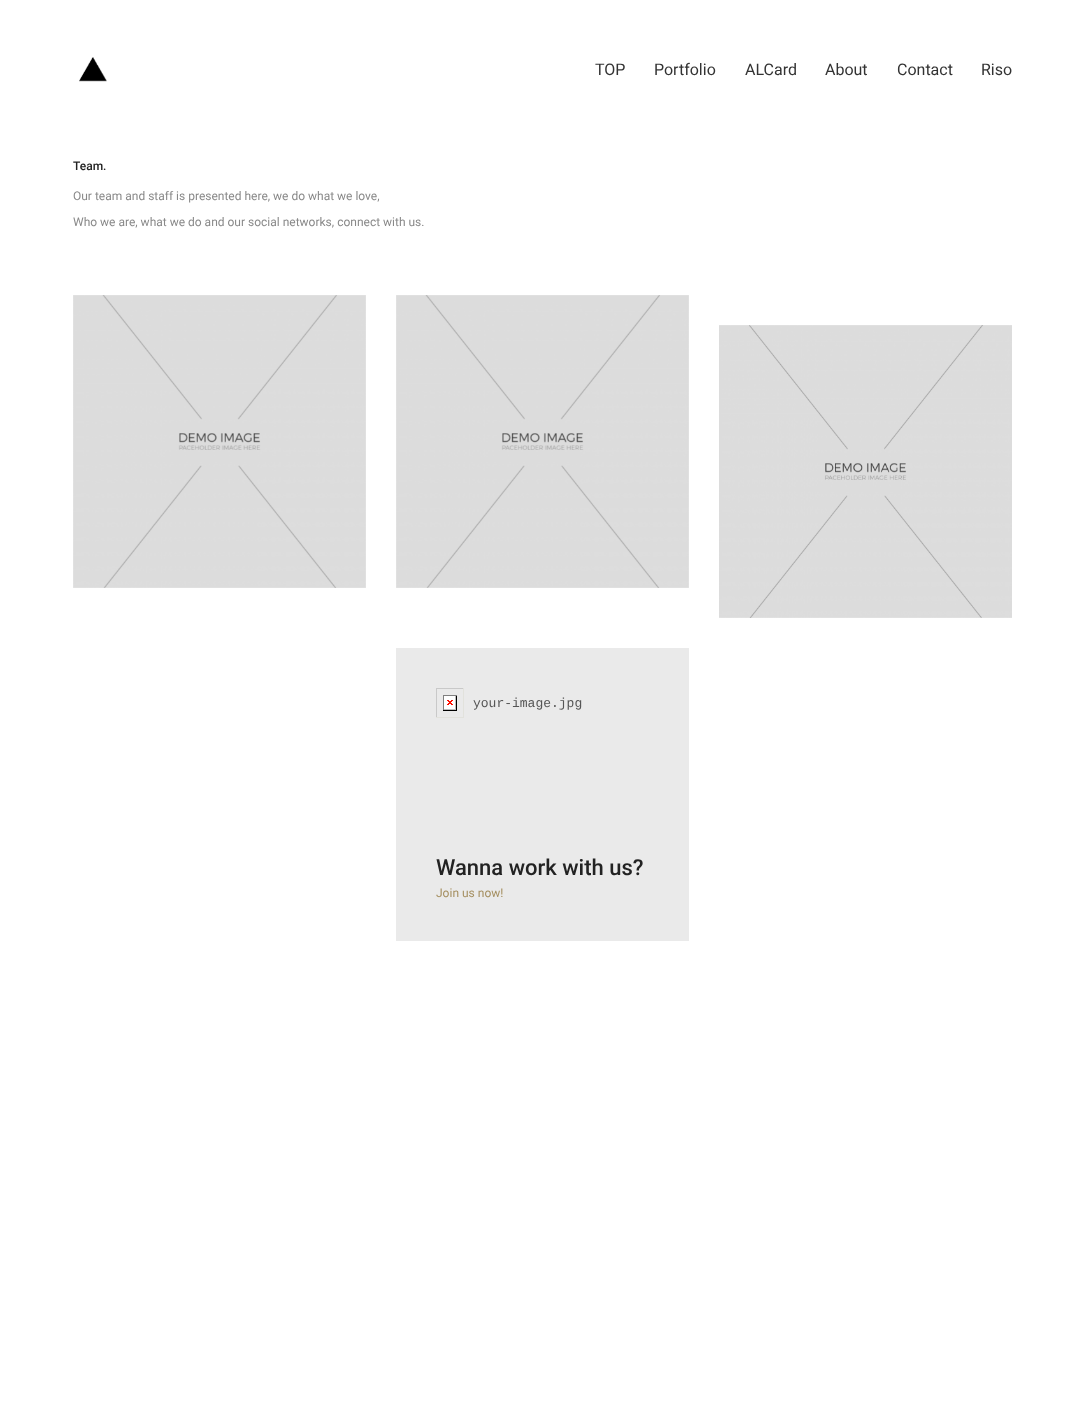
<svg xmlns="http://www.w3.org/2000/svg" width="1085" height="1426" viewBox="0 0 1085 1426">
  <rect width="100%" height="100%" fill="#ffffff"/>
  <image x="79" y="57" width="28" height="25" href="img1.png"/>
  <text x="595" y="75" font-family="Roboto" font-size="16" fill="#333333">TOP</text>
  <text x="654" y="75" font-family="Roboto" font-size="16" fill="#333333">Portfolio</text>
  <text x="745" y="75" font-family="Roboto" font-size="16" fill="#333333">ALCard</text>
  <text x="825" y="75" font-family="Roboto" font-size="16" fill="#333333">About</text>
  <text x="897" y="75" font-family="Roboto" font-size="16" fill="#333333">Contact</text>
  <text x="981" y="75" font-family="Roboto" font-size="16" fill="#333333">Riso</text>
  <text x="73" y="170" font-family="Roboto" font-size="12" font-weight="500" fill="#222222">Team.</text>
  <text x="73" y="200" font-family="Roboto" font-size="12" fill="#898989">Our team and staff is presented here, we do what we love,</text>
  <text x="73" y="226" font-family="Roboto" font-size="12" fill="#898989">Who we are, what we do and our social networks, connect with us.</text>
  <image x="73" y="295" width="293" height="293" href="img2.png"/>
  <image x="396" y="295" width="293" height="293" href="img2.png"/>
  <image x="719" y="325" width="293" height="293" href="img3.png"/>
  <rect x="396" y="648" width="293" height="293" fill="#eaeaea"/>
  <image x="436" y="688" width="28" height="30" href="img4.png"/>
  <text x="473" y="707" font-family="Liberation Mono" font-size="13" fill="#555555">your-image.jpg</text>
  <text x="436" y="875" font-family="Roboto" font-size="22" font-weight="500" fill="#222222">Wanna work with us?</text>
  <text x="436" y="897" font-family="Roboto" font-size="12" fill="#a58f60">Join us now!</text>
</svg>
